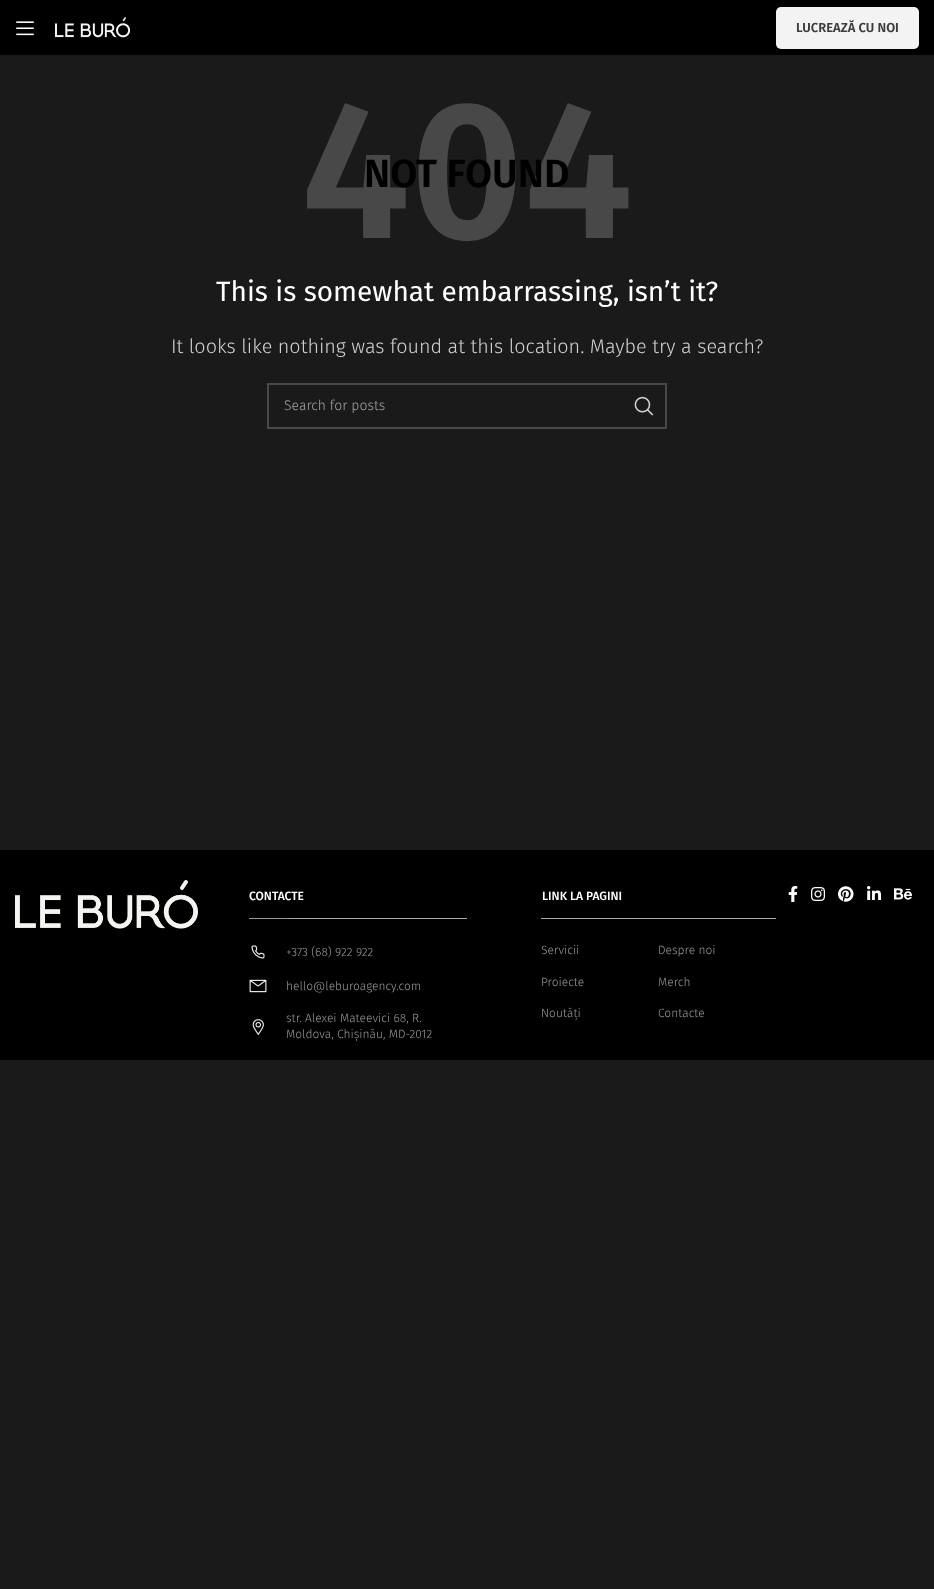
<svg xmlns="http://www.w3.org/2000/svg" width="934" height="1589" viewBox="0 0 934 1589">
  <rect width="100%" height="100%" fill="#1a1a1a"/>
  <rect x="0" y="0" width="934" height="55" fill="#000000"/>
  <image x="16" y="21" width="18" height="15" href="img1.png"/>
  <image x="55" y="17" width="76" height="21" href="img2.png"/>
  <rect x="776" y="7" width="143" height="42" rx="5" fill="#f3f3f3"/>
  <text x="796" y="32" font-family="Fira Sans" font-size="13" font-weight="600" fill="#3e3e3e">LUCREAZĂ CU NOI</text>
  <text x="301" y="238" font-family="Fira Sans" font-size="196" font-weight="600" fill="#484848">404</text>
  <text x="364" y="187" font-family="Fira Sans" font-size="39.25" font-weight="600" fill="#000000">NOT FOUND</text>
  <text x="216" y="301" font-family="Fira Sans" font-size="28" fill="#ffffff">This is somewhat embarrassing, isn’t it?</text>
  <text x="171" y="353" font-family="Fira Sans" font-size="19.8" font-weight="300" fill="#d1d1d1">It looks like nothing was found at this location. Maybe try a search?</text>
  <rect x="268" y="384" width="398" height="44" fill="none" stroke="#484848" stroke-width="2"/>
  <text x="284" y="410" font-family="Fira Sans" font-size="14" font-weight="300" fill="#a3a3a3">Search for posts</text>
  <image x="634" y="396" width="20" height="20" href="img3.png"/>
  <rect x="0" y="850" width="934" height="210" fill="#000000"/>
  <image x="15" y="880" width="183" height="49" href="img4.png"/>
  <text x="249" y="900" font-family="Fira Sans" font-size="12" font-weight="500" fill="#ffffff">CONTACTE</text>
  <rect x="289" y="918" width="178" height="1" fill="#aaaba8"/>
  <rect x="249" y="918" width="40" height="1" fill="#979896"/>
  <image x="251" y="945" width="14" height="14" href="img5.png"/>
  <text x="286" y="956" font-family="Fira Sans" font-size="12" font-weight="300" fill="#999999">+373 (68) 922 922</text>
  <image x="249" y="979" width="18" height="14" href="img6.png"/>
  <text x="286" y="990" font-family="Fira Sans" font-size="12" font-weight="300" fill="#999999">hello@leburoagency.com</text>
  <image x="252" y="1019" width="12" height="17" href="img7.png"/>
  <text x="286" y="1022" font-family="Fira Sans" font-size="12" font-weight="300" fill="#999999">str. Alexei Mateevici 68, R.</text>
  <text x="286" y="1038" font-family="Fira Sans" font-size="12" font-weight="300" fill="#999999">Moldova, Chișinău, MD-2012</text>
  <text x="542" y="900" font-family="Fira Sans" font-size="12" font-weight="500" fill="#ffffff">LINK LA PAGINI</text>
  <rect x="541" y="918" width="235" height="1" fill="#aaaba8"/>
  <text x="541" y="954" font-family="Fira Sans" font-size="12" font-weight="300" fill="#999999">Servicii</text>
  <text x="541" y="986" font-family="Fira Sans" font-size="12" font-weight="300" fill="#999999">Proiecte</text>
  <text x="541" y="1017" font-family="Fira Sans" font-size="12" font-weight="300" fill="#999999">Noutăți</text>
  <text x="658" y="954" font-family="Fira Sans" font-size="12" font-weight="300" fill="#999999">Despre noi</text>
  <text x="658" y="986" font-family="Fira Sans" font-size="12" font-weight="300" fill="#999999">Merch</text>
  <text x="658" y="1017" font-family="Fira Sans" font-size="12" font-weight="300" fill="#999999">Contacte</text>
  <image x="788" y="886" width="10" height="16" href="img8.png"/>
  <image x="811" y="887" width="14" height="14" href="img9.png"/>
  <image x="838" y="886" width="16" height="16" href="img10.png"/>
  <image x="867" y="886" width="14" height="14" href="img11.png"/>
  <image x="894" y="888" width="18" height="12" href="img12.png"/>
</svg>
